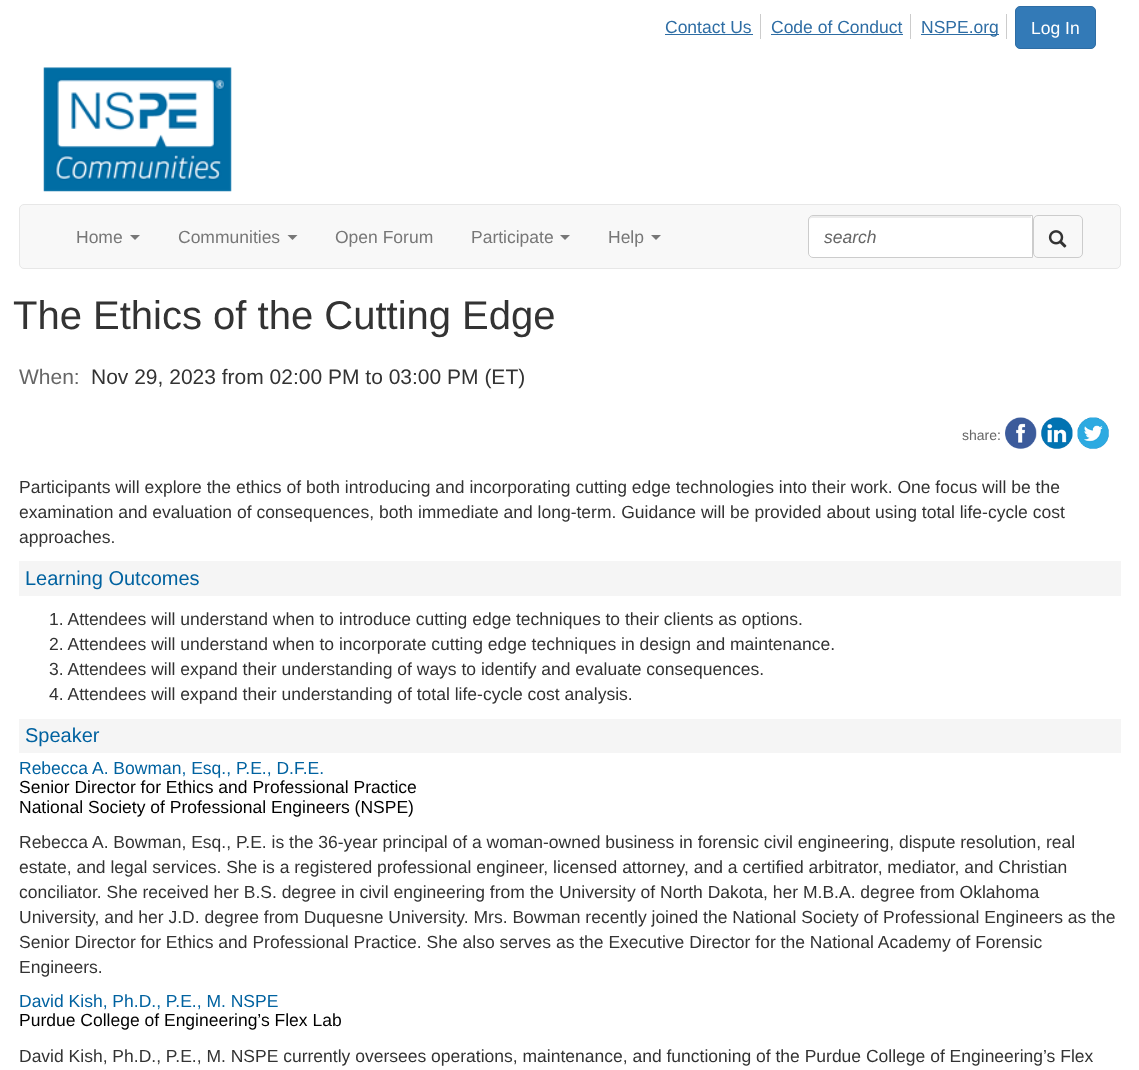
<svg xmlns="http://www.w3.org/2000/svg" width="1139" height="1070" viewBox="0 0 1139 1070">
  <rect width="100%" height="100%" fill="#ffffff"/>
  <rect x="760" y="14" width="1" height="25" fill="#cccccc"/>
  <text x="665" y="33" font-family="Liberation Sans" font-size="17.5" fill="#2e6da4">Contact Us</text>
  <rect x="665" y="34" width="88" height="1" fill="#2e6da4"/>
  <rect x="910" y="14" width="1" height="25" fill="#cccccc"/>
  <text x="771" y="33" font-family="Liberation Sans" font-size="17.5" fill="#2e6da4">Code of Conduct</text>
  <rect x="771" y="34" width="132" height="1" fill="#2e6da4"/>
  <rect x="1006" y="14" width="1" height="25" fill="#cccccc"/>
  <rect x="921" y="34" width="78" height="1" fill="#2e6da4"/>
  <text x="921" y="33" font-family="Liberation Sans" font-size="17.5" fill="#2e6da4">NSPE.org</text>
  <rect x="1015.5" y="6.5" width="80" height="42" rx="4.5" fill="#337ab7" stroke="#2e6da4"/>
  <text x="1031" y="34" font-family="Liberation Sans" font-size="17.5" fill="#ffffff">Log In</text>
  <image x="43" y="67" width="189" height="125" href="img1.png"/>
  <rect x="19.5" y="204.5" width="1101" height="64" rx="4.5" fill="#f8f8f8" stroke="#e7e7e7"/>
  <text x="76" y="243" font-family="Liberation Sans" font-size="17.5" fill="#777777">Home</text>
  <path d="M130 235H140L135 240Z" fill="#777777"/>
  <text x="178" y="243" font-family="Liberation Sans" font-size="17.5" fill="#777777">Communities</text>
  <path d="M287.5 235H297.5L292.5 240Z" fill="#777777"/>
  <text x="335" y="243" font-family="Liberation Sans" font-size="17.5" fill="#777777">Open Forum</text>
  <text x="471" y="243" font-family="Liberation Sans" font-size="17.5" fill="#777777">Participate</text>
  <path d="M560 235H570L565 240Z" fill="#777777"/>
  <text x="608" y="243" font-family="Liberation Sans" font-size="17.5" fill="#777777">Help</text>
  <path d="M651 235H661L656 240Z" fill="#777777"/>
  <path d="M813 215H1033V258H813C810 258 808 256 808 253V220C808 217 810 215 813 215Z" fill="#ffffff"/>
  <path d="M812 218H1031V216H813C810 216 809 218 809 221C809 219 810 218 812 218Z" fill="#ececec"/>
  <path d="M813 215.5H1032.5V257.5H813C810.5 257.5 808.5 255.5 808.5 253V220C808.5 217.5 810.5 215.5 813 215.5Z" fill="none" stroke="#cccccc"/>
  <text x="824" y="243" font-family="Liberation Sans" font-size="17.5" font-style="italic" fill="#666666">search</text>
  <rect x="1033.5" y="215.5" width="49" height="42" rx="4.5" fill="none" stroke="#cccccc"/>
  <image x="1048" y="230" width="19" height="18" href="img2.png"/>
  <text x="13" y="329" font-family="Liberation Sans" font-size="40" fill="#333333">The Ethics of the Cutting Edge</text>
  <text x="19" y="384" font-family="Liberation Sans" font-size="21" fill="#666666">When:</text>
  <text x="91" y="384" font-family="Liberation Sans" font-size="21" fill="#333333">Nov 29, 2023 from 02:00 PM to 03:00 PM (ET)</text>
  <text x="962" y="440" font-family="Liberation Sans" font-size="14" fill="#666666">share:</text>
  <image x="1005" y="417" width="32" height="32" href="img3.png"/>
  <image x="1041" y="417" width="32" height="32" href="img4.png"/>
  <image x="1077" y="417" width="32" height="32" href="img5.png"/>
  <text x="19" y="493" font-family="Liberation Sans" font-size="17.5" fill="#333333">Participants will explore the ethics of both introducing and incorporating cutting edge technologies into their work. One focus will be the</text>
  <text x="19" y="518" font-family="Liberation Sans" font-size="17.5" fill="#333333">examination and evaluation of consequences, both immediate and long-term. Guidance will be provided about using total life-cycle cost</text>
  <text x="19" y="543" font-family="Liberation Sans" font-size="17.5" fill="#333333">approaches.</text>
  <rect x="19" y="561" width="1102" height="35" fill="#f5f5f5"/>
  <text x="25" y="585" font-family="Liberation Sans" font-size="20" fill="#0062a0">Learning Outcomes</text>
  <text x="49" y="625" font-family="Liberation Sans" font-size="17.5" fill="#333333">1. Attendees will understand when to introduce cutting edge techniques to their clients as options.</text>
  <text x="49" y="650" font-family="Liberation Sans" font-size="17.5" fill="#333333">2. Attendees will understand when to incorporate cutting edge techniques in design and maintenance.</text>
  <text x="49" y="675" font-family="Liberation Sans" font-size="17.5" fill="#333333">3. Attendees will expand their understanding of ways to identify and evaluate consequences.</text>
  <text x="49" y="700" font-family="Liberation Sans" font-size="17.5" fill="#333333">4. Attendees will expand their understanding of total life-cycle cost analysis.</text>
  <rect x="19" y="719" width="1102" height="34" fill="#f5f5f5"/>
  <text x="25" y="742" font-family="Liberation Sans" font-size="20" fill="#0062a0">Speaker</text>
  <text x="19" y="774" font-family="Liberation Sans" font-size="17.5" fill="#0062a0">Rebecca A. Bowman, Esq., P.E., D.F.E.</text>
  <text x="19" y="793" font-family="Liberation Sans" font-size="17.5" fill="#000000">Senior Director for Ethics and Professional Practice</text>
  <text x="19" y="813" font-family="Liberation Sans" font-size="17.5" fill="#000000">National Society of Professional Engineers (NSPE)</text>
  <text x="19" y="848" font-family="Liberation Sans" font-size="17.5" fill="#333333">Rebecca A. Bowman, Esq., P.E. is the 36-year principal of a woman-owned business in forensic civil engineering, dispute resolution, real</text>
  <text x="19" y="873" font-family="Liberation Sans" font-size="17.5" fill="#333333">estate, and legal services. She is a registered professional engineer, licensed attorney, and a certified arbitrator, mediator, and Christian</text>
  <text x="19" y="898" font-family="Liberation Sans" font-size="17.5" fill="#333333">conciliator. She received her B.S. degree in civil engineering from the University of North Dakota, her M.B.A. degree from Oklahoma</text>
  <text x="19" y="923" font-family="Liberation Sans" font-size="17.5" fill="#333333">University, and her J.D. degree from Duquesne University. Mrs. Bowman recently joined the National Society of Professional Engineers as the</text>
  <text x="19" y="948" font-family="Liberation Sans" font-size="17.5" fill="#333333">Senior Director for Ethics and Professional Practice. She also serves as the Executive Director for the National Academy of Forensic</text>
  <text x="19" y="973" font-family="Liberation Sans" font-size="17.5" fill="#333333">Engineers.</text>
  <text x="19" y="1007" font-family="Liberation Sans" font-size="17.5" fill="#0062a0">David Kish, Ph.D., P.E., M. NSPE</text>
  <text x="19" y="1026" font-family="Liberation Sans" font-size="17.5" fill="#000000">Purdue College of Engineering’s Flex Lab</text>
  <text x="19" y="1062" font-family="Liberation Sans" font-size="17.5" fill="#333333">David Kish, Ph.D., P.E., M. NSPE currently oversees operations, maintenance, and functioning of the Purdue College of Engineering’s Flex</text>
</svg>
